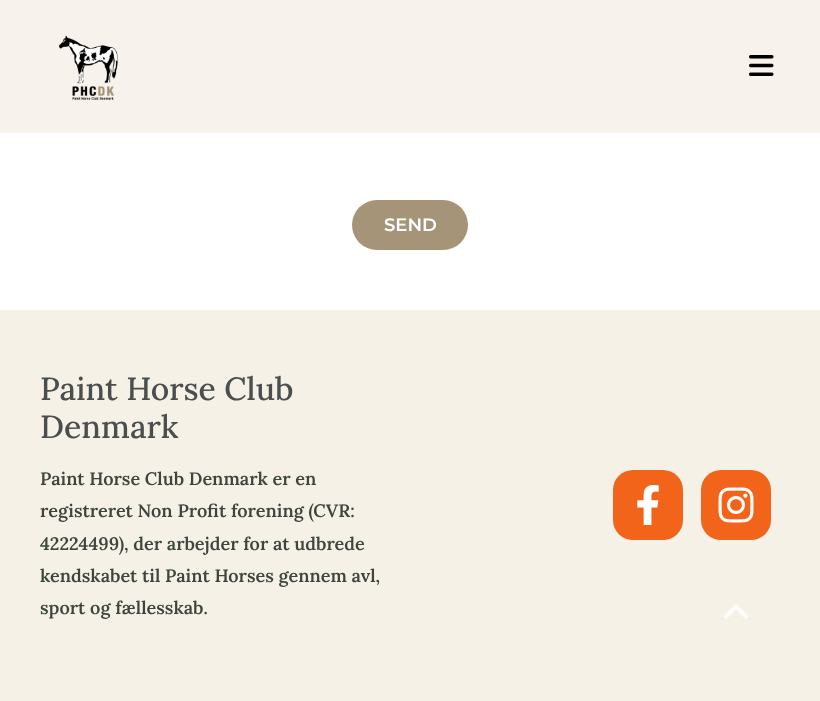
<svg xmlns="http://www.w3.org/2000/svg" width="820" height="701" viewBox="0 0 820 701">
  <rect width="100%" height="100%" fill="#ffffff"/>
  <rect x="0" y="0" width="820" height="133" fill="#f8f2ed"/>
  <image x="59" y="35" width="59" height="65" href="img1.png"/>
  <image x="749" y="55" width="25" height="21" href="img2.png"/>
  <rect x="352" y="200" width="116" height="50" rx="25" fill="#a59478"/>
  <text x="384" y="231" font-family="Montserrat" font-size="18" font-weight="600" fill="#ffffff">SEND</text>
  <rect x="0" y="310" width="820" height="391" fill="#f5f1e7"/>
  <text x="40" y="400" font-family="Lora" font-size="32" font-weight="500" fill="#4a4e4c">Paint Horse Club</text>
  <text x="40" y="438" font-family="Lora" font-size="32" font-weight="500" fill="#4a4e4c">Denmark</text>
  <text x="40" y="485" font-family="Lora" font-size="18" font-weight="600" fill="#3d453d">Paint Horse Club Denmark er en</text>
  <text x="40" y="517" font-family="Lora" font-size="18" font-weight="600" fill="#3d453d">registreret Non Profit forening (CVR:</text>
  <text x="40" y="550" font-family="Lora" font-size="18" font-weight="600" fill="#3d453d">42224499), der arbejder for at udbrede</text>
  <text x="40" y="582" font-family="Lora" font-size="18" font-weight="600" fill="#3d453d">kendskabet til Paint Horses gennem avl,</text>
  <text x="40" y="614" font-family="Lora" font-size="18" font-weight="600" fill="#3d453d">sport og fællesskab.</text>
  <rect x="613" y="470" width="70" height="70" rx="20" fill="#f26419"/>
  <image x="637" y="485" width="22" height="40" href="img3.png"/>
  <rect x="701" y="470" width="70" height="70" rx="20" fill="#f26419"/>
  <image x="718" y="487" width="36" height="36" href="img4.png"/>
  <image x="724" y="604" width="24" height="15" href="img5.png"/>
</svg>
